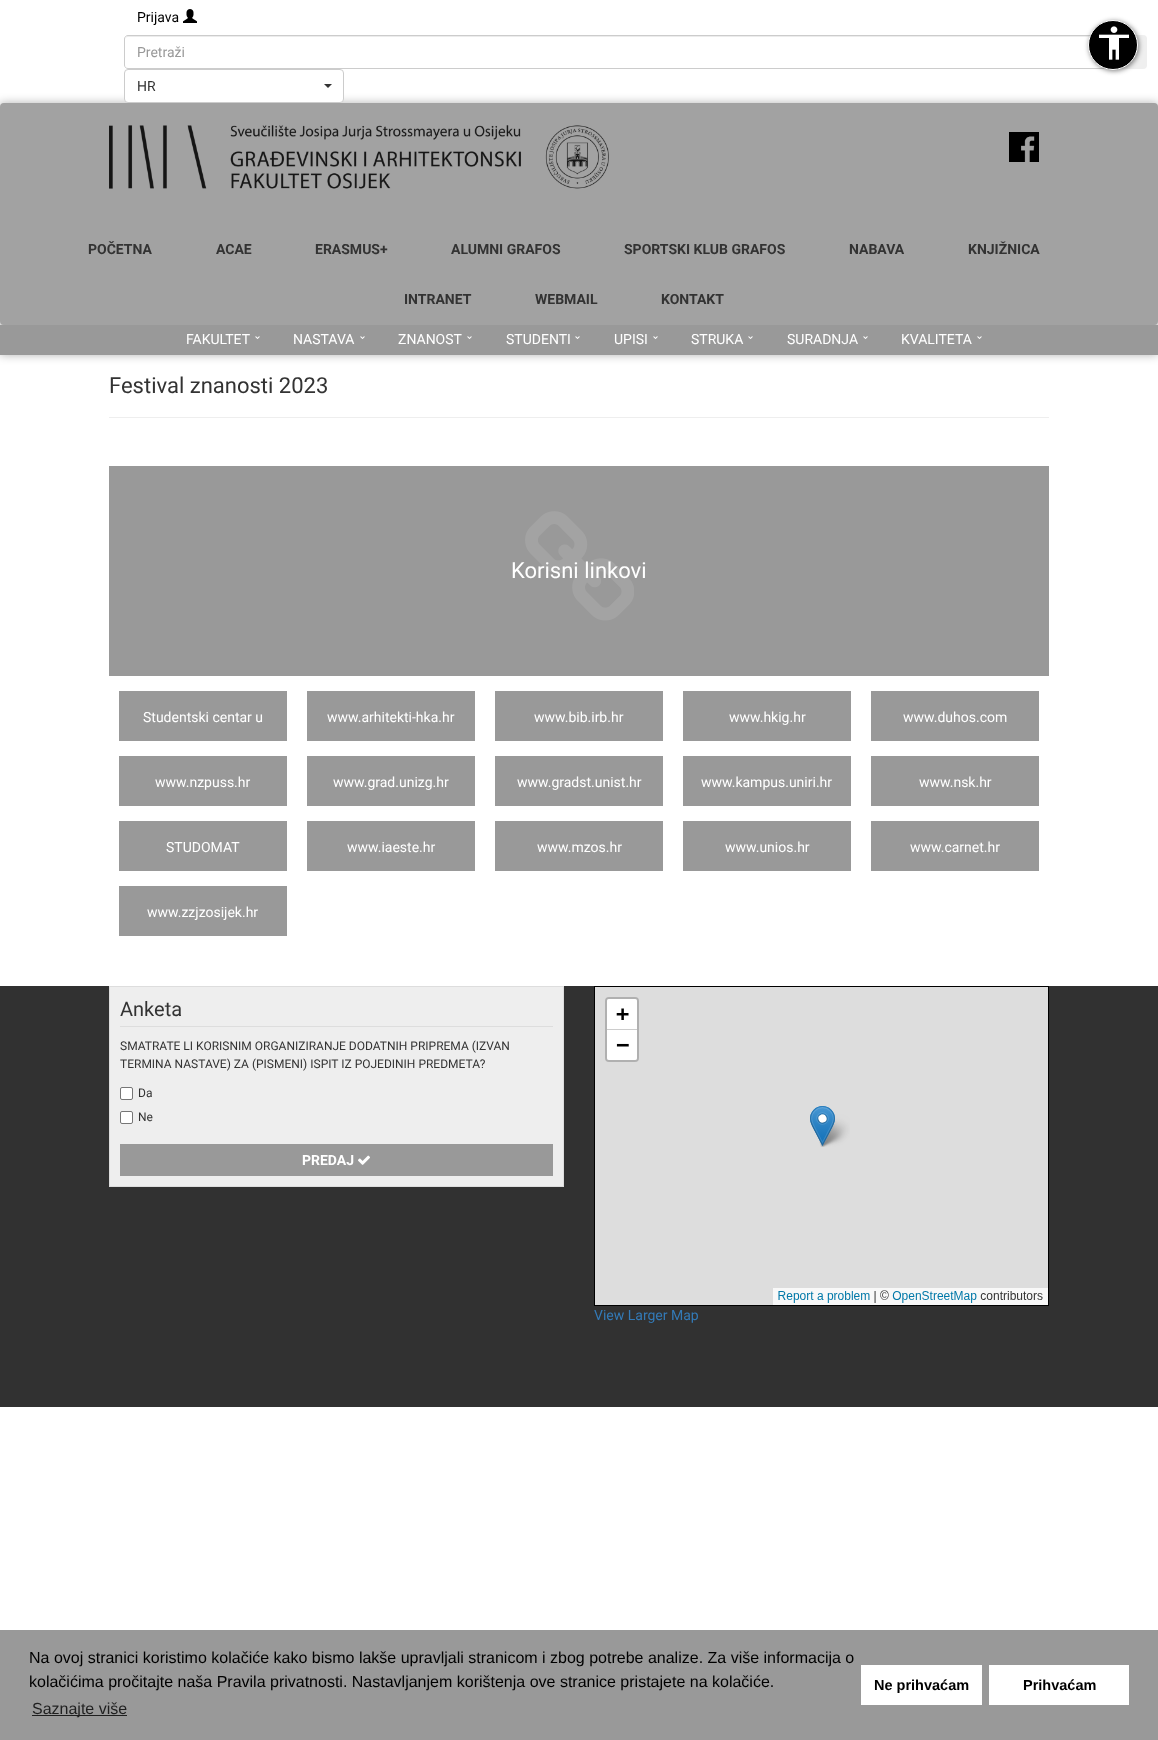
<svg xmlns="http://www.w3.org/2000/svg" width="1158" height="1740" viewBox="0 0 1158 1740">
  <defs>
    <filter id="blur1" x="-50%" y="-200%" width="200%" height="500%"><feGaussianBlur stdDeviation="5"/></filter>
    <filter id="blur2" x="-50%" y="-200%" width="200%" height="500%"><feGaussianBlur stdDeviation="2.5"/></filter>
  </defs>
  <rect width="100%" height="100%" fill="#ffffff"/>
  <text x="137" y="22" font-family="Roboto" font-size="14" fill="#000000">Prijava</text>
  <image x="183" y="9" width="14" height="14" href="img1.png"/>
  <path d="M128 37H1106V36H128C126 36 125 38 125 40C125 38 126 37 128 37Z" fill="#ececec"/>
  <path d="M128 35.5H1106.5V68.5H128C126 68.5 124.5 67 124.5 65V39C124.5 37 126 35.5 128 35.5Z" fill="none" stroke="#cccccc"/>
  <text x="137" y="57" font-family="Roboto" font-size="14" fill="#999999">Pretraži</text>
  <rect x="1107" y="35" width="40" height="34" rx="4" fill="#efefef"/>
  <rect x="0" y="103" width="1158" height="222" fill="#000000" fill-opacity="0.3" filter="url(#blur1)"/>
  <rect x="124.5" y="69.5" width="219" height="33" rx="3.5" fill="#ffffff" stroke="#cccccc"/>
  <text x="137" y="91" font-family="Roboto" font-size="14" fill="#333333">HR</text>
  <path d="M324 84H332L328 88Z" fill="#333333"/>
  <rect x="1089" y="21" width="50" height="50" rx="25" fill="#000000" fill-opacity="0.5" filter="url(#blur2)"/>
  <circle cx="1113" cy="45" r="24.5" fill="#000000" stroke="#ffffff"/>
  <image x="1099" y="26" width="30" height="34" href="img2.png"/>
  <rect x="0" y="325" width="1158" height="30" fill="#000000" fill-opacity="0.3" filter="url(#blur1)"/>
  <rect x="0" y="103" width="1158" height="222" rx="4" fill="#a2a2a2"/>
  <image x="109" y="125" width="500" height="64" href="img3.png"/>
  <image x="1009" y="132" width="30" height="30" href="img4.png"/>
  <text x="88" y="254" font-family="Roboto" font-size="14" font-weight="bold" fill="#333333">POČETNA</text>
  <text x="216" y="254" font-family="Roboto" font-size="14" font-weight="bold" fill="#333333">ACAE</text>
  <text x="315" y="254" font-family="Roboto" font-size="14" font-weight="bold" fill="#333333">ERASMUS+</text>
  <text x="451" y="254" font-family="Roboto" font-size="14" font-weight="bold" fill="#333333">ALUMNI GRAFOS</text>
  <text x="624" y="254" font-family="Roboto" font-size="14" font-weight="bold" fill="#333333">SPORTSKI KLUB GRAFOS</text>
  <text x="849" y="254" font-family="Roboto" font-size="14" font-weight="bold" fill="#333333">NABAVA</text>
  <text x="968" y="254" font-family="Roboto" font-size="14" font-weight="bold" fill="#333333">KNJIŽNICA</text>
  <text x="404" y="304" font-family="Roboto" font-size="14" font-weight="bold" fill="#333333">INTRANET</text>
  <text x="535" y="304" font-family="Roboto" font-size="14" font-weight="bold" fill="#333333">WEBMAIL</text>
  <text x="661" y="304" font-family="Roboto" font-size="14" font-weight="bold" fill="#333333">KONTAKT</text>
  <rect x="0" y="325" width="1158" height="30" fill="#999999"/>
  <text x="186" y="344" font-family="Roboto" font-size="14" fill="#ffffff">FAKULTET</text>
  <image x="255" y="336" width="5" height="3" href="img5.png"/>
  <text x="293" y="344" font-family="Roboto" font-size="14" fill="#ffffff">NASTAVA</text>
  <image x="360" y="336" width="5" height="3" href="img5.png"/>
  <text x="398" y="344" font-family="Roboto" font-size="14" fill="#ffffff">ZNANOST</text>
  <image x="467" y="336" width="5" height="3" href="img5.png"/>
  <text x="506" y="344" font-family="Roboto" font-size="14" fill="#ffffff">STUDENTI</text>
  <image x="575" y="336" width="5" height="3" href="img5.png"/>
  <text x="614" y="344" font-family="Roboto" font-size="14" fill="#ffffff">UPISI</text>
  <image x="653" y="336" width="5" height="3" href="img5.png"/>
  <text x="691" y="344" font-family="Roboto" font-size="14" fill="#ffffff">STRUKA</text>
  <image x="748" y="336" width="5" height="3" href="img5.png"/>
  <text x="787" y="344" font-family="Roboto" font-size="14" fill="#ffffff">SURADNJA</text>
  <image x="863" y="336" width="5" height="3" href="img5.png"/>
  <text x="901" y="344" font-family="Roboto" font-size="14" fill="#ffffff">KVALITETA</text>
  <image x="977" y="336" width="5" height="3" href="img5.png"/>
  <text x="109" y="393" font-family="Roboto" font-size="22" fill="#333333">Festival znanosti 2023</text>
  <rect x="109" y="417" width="940" height="1" fill="#eeeeee"/>
  <rect x="109" y="466" width="940" height="210" fill="#999999"/>
  <text x="511" y="578" font-family="Roboto" font-size="22" fill="#ffffff">Korisni linkovi</text>
  <image x="525" y="511" width="109" height="110" href="img6.png"/>
  <rect x="119" y="691" width="168" height="50" fill="#999999"/>
  <text x="143" y="722" font-family="Roboto" font-size="14" fill="#ffffff">Studentski centar u</text>
  <rect x="307" y="691" width="168" height="50" fill="#999999"/>
  <text x="327" y="722" font-family="Roboto" font-size="14" fill="#ffffff">www.arhitekti-hka.hr</text>
  <rect x="495" y="691" width="168" height="50" fill="#999999"/>
  <text x="534" y="722" font-family="Roboto" font-size="14" fill="#ffffff">www.bib.irb.hr</text>
  <rect x="683" y="691" width="168" height="50" fill="#999999"/>
  <text x="729" y="722" font-family="Roboto" font-size="14" fill="#ffffff">www.hkig.hr</text>
  <rect x="871" y="691" width="168" height="50" fill="#999999"/>
  <text x="903" y="722" font-family="Roboto" font-size="14" fill="#ffffff">www.duhos.com</text>
  <rect x="119" y="756" width="168" height="50" fill="#999999"/>
  <text x="155" y="787" font-family="Roboto" font-size="14" fill="#ffffff">www.nzpuss.hr</text>
  <rect x="307" y="756" width="168" height="50" fill="#999999"/>
  <text x="333" y="787" font-family="Roboto" font-size="14" fill="#ffffff">www.grad.unizg.hr</text>
  <rect x="495" y="756" width="168" height="50" fill="#999999"/>
  <text x="517" y="787" font-family="Roboto" font-size="14" fill="#ffffff">www.gradst.unist.hr</text>
  <rect x="683" y="756" width="168" height="50" fill="#999999"/>
  <text x="701" y="787" font-family="Roboto" font-size="14" fill="#ffffff">www.kampus.uniri.hr</text>
  <rect x="871" y="756" width="168" height="50" fill="#999999"/>
  <text x="919" y="787" font-family="Roboto" font-size="14" fill="#ffffff">www.nsk.hr</text>
  <rect x="119" y="821" width="168" height="50" fill="#999999"/>
  <text x="166" y="852" font-family="Roboto" font-size="14" fill="#ffffff">STUDOMAT</text>
  <rect x="307" y="821" width="168" height="50" fill="#999999"/>
  <text x="347" y="852" font-family="Roboto" font-size="14" fill="#ffffff">www.iaeste.hr</text>
  <rect x="495" y="821" width="168" height="50" fill="#999999"/>
  <text x="537" y="852" font-family="Roboto" font-size="14" fill="#ffffff">www.mzos.hr</text>
  <rect x="683" y="821" width="168" height="50" fill="#999999"/>
  <text x="725" y="852" font-family="Roboto" font-size="14" fill="#ffffff">www.unios.hr</text>
  <rect x="871" y="821" width="168" height="50" fill="#999999"/>
  <text x="910" y="852" font-family="Roboto" font-size="14" fill="#ffffff">www.carnet.hr</text>
  <rect x="119" y="886" width="168" height="50" fill="#999999"/>
  <text x="147" y="917" font-family="Roboto" font-size="14" fill="#ffffff">www.zzjzosijek.hr</text>
  <rect x="0" y="986" width="1158" height="421" fill="#313131"/>
  <rect x="109.5" y="986.5" width="454" height="200" fill="#eeeeee" stroke="#dddddd"/>
  <rect x="120" y="1026" width="433" height="1" fill="#dddddd"/>
  <text x="120" y="1016" font-family="Roboto" font-size="20" fill="#333333">Anketa</text>
  <text x="120" y="1050" font-family="Roboto" font-size="12" fill="#333333">SMATRATE LI KORISNIM ORGANIZIRANJE DODATNIH PRIPREMA (IZVAN</text>
  <text x="120" y="1068" font-family="Roboto" font-size="12" fill="#333333">TERMINA NASTAVE) ZA (PISMENI) ISPIT IZ POJEDINIH PREDMETA?</text>
  <rect x="120.5" y="1087.5" width="12" height="12" rx="1.5" fill="#ffffff" stroke="#767676"/>
  <text x="138" y="1097" font-family="Roboto" font-size="12" fill="#333333">Da</text>
  <rect x="120.5" y="1111.5" width="12" height="12" rx="1.5" fill="#ffffff" stroke="#767676"/>
  <text x="138" y="1121" font-family="Roboto" font-size="12" fill="#333333">Ne</text>
  <rect x="120" y="1144" width="433" height="32" fill="#999999"/>
  <text x="302" y="1165" font-family="Roboto" font-size="14" font-weight="bold" fill="#ffffff">PREDAJ</text>
  <image x="358" y="1155" width="12" height="10" href="img7.png"/>
  <rect x="594.5" y="986.5" width="454" height="319" fill="none" stroke="#000000"/>
  <image x="595" y="987" width="453" height="318" href="img8.png"/>
  <text x="594" y="1320" font-family="Roboto" font-size="14" fill="#337ab7">View Larger Map</text>
  <rect x="0" y="1630" width="1158" height="110" fill="#999999"/>
  <text x="29" y="1663" font-family="Liberation Sans" font-size="16" fill="#000000">Na ovoj stranici koristimo kolačiće kako bismo lakše upravljali stranicom i zbog potrebe analize. Za više informacija o</text>
  <text x="29" y="1687" font-family="Liberation Sans" font-size="16" fill="#000000">kolačićima pročitajte naša Pravila privatnosti. Nastavljanjem korištenja ove stranice pristajete na kolačiće.</text>
  <rect x="32" y="1715" width="95" height="1" fill="#1f1f1f"/>
  <text x="32" y="1714" font-family="Liberation Sans" font-size="16" fill="#1f1f1f">Saznajte više</text>
  <rect x="861" y="1665" width="121" height="40" fill="#ffffff"/>
  <text x="874" y="1690" font-family="Liberation Sans" font-size="14.5" font-weight="bold" fill="#000000">Ne prihvaćam</text>
  <rect x="989" y="1665" width="140" height="40" fill="#ffffff"/>
  <text x="1023" y="1690" font-family="Liberation Sans" font-size="14.5" font-weight="bold" fill="#000000">Prihvaćam</text>
</svg>
